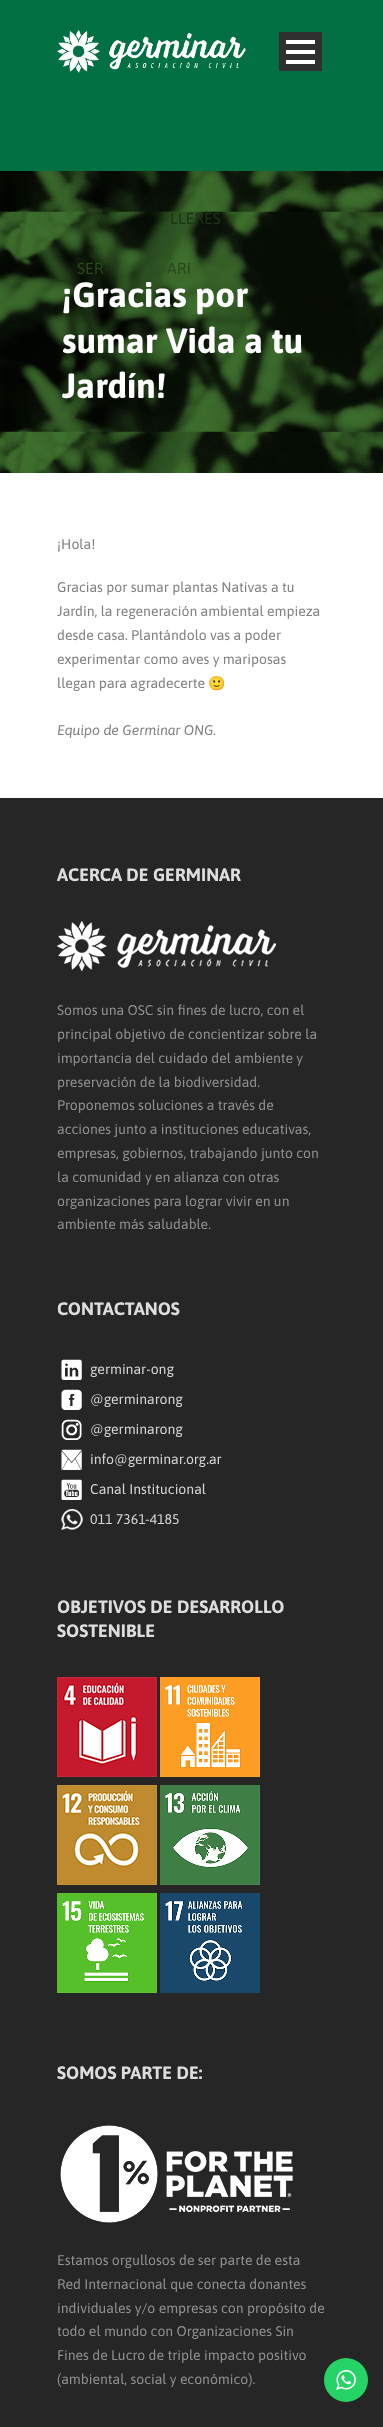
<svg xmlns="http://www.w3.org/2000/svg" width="383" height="2427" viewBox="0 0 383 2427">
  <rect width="100%" height="100%" fill="#ffffff"/>
  <rect x="0" y="0" width="383" height="171" fill="#027043"/>
  <image x="57" y="30" width="189" height="43" href="img1.png"/>
  <rect x="279" y="32" width="43" height="39" fill="#303030"/>
  <rect x="286" y="60" width="29" height="4" fill="#ffffff"/>
  <rect x="286" y="50" width="29" height="4" fill="#ffffff"/>
  <rect x="286" y="40" width="29" height="4" fill="#ffffff"/>
  <image x="0" y="171" width="383" height="302" href="img2.png"/>
  <text x="170" y="224" font-family="Asap" font-size="16" fill="#1d3516">LLERES</text>
  <text x="77" y="274" font-family="Asap" font-size="16" fill="#29491e">SER</text>
  <text x="167" y="274" font-family="Asap" font-size="16" fill="#29491e">ARI</text>
  <text x="62" y="307" font-family="Asap" font-size="35" font-weight="bold" fill="#ffffff">¡Gracias por</text>
  <text x="62" y="353" font-family="Asap" font-size="35" font-weight="bold" fill="#ffffff">sumar Vida a tu</text>
  <text x="62" y="398" font-family="Asap" font-size="35" font-weight="bold" fill="#ffffff">Jardín!</text>
  <text x="57" y="549" font-family="Asap" font-size="14" fill="#808080">¡Hola!</text>
  <text x="57" y="592" font-family="Asap" font-size="14" fill="#808080">Gracias por sumar plantas Nativas a tu</text>
  <text x="57" y="616" font-family="Asap" font-size="14" fill="#808080">Jardín, la regeneración ambiental empieza</text>
  <text x="57" y="640" font-family="Asap" font-size="14" fill="#808080">desde casa. Plantándolo vas a poder</text>
  <text x="57" y="664" font-family="Asap" font-size="14" fill="#808080">experimentar como aves y mariposas</text>
  <text x="57" y="688" font-family="Asap" font-size="14" fill="#808080">llegan para agradecerte</text>
  <text x="208" y="688" font-family="Noto Color Emoji" font-size="14" fill="#808080">🙂</text>
  <text x="57" y="735" font-family="Asap" font-size="14" font-style="italic" fill="#808080">Equipo de Germinar ONG</text>
  <text x="213" y="735" font-family="Asap" font-size="14" fill="#808080">.</text>
  <rect x="0" y="798" width="383" height="1629" fill="#262626"/>
  <text x="57" y="881" font-family="Asap" font-size="18" font-weight="bold" fill="#dddddd">ACERCA DE GERMINAR</text>
  <image x="57" y="921" width="219" height="50" href="img3.png"/>
  <text x="57" y="1015" font-family="Asap" font-size="14" fill="#919191">Somos una OSC sin fines de lucro, con el</text>
  <text x="57" y="1039" font-family="Asap" font-size="14" fill="#919191">principal objetivo de concientizar sobre la</text>
  <text x="57" y="1063" font-family="Asap" font-size="14" fill="#919191">importancia del cuidado del ambiente y</text>
  <text x="57" y="1087" font-family="Asap" font-size="14" fill="#919191">preservación de la biodiversidad.</text>
  <text x="57" y="1110" font-family="Asap" font-size="14" fill="#919191">Proponemos soluciones a través de</text>
  <text x="57" y="1134" font-family="Asap" font-size="14" fill="#919191">acciones junto a instituciones educativas,</text>
  <text x="57" y="1158" font-family="Asap" font-size="14" fill="#919191">empresas, gobiernos, trabajando junto con</text>
  <text x="57" y="1182" font-family="Asap" font-size="14" fill="#919191">la comunidad y en alianza con otras</text>
  <text x="57" y="1206" font-family="Asap" font-size="14" fill="#919191">organizaciones para lograr vivir en un</text>
  <text x="57" y="1229" font-family="Asap" font-size="14" fill="#919191">ambiente más saludable.</text>
  <text x="57" y="1315" font-family="Asap" font-size="18" font-weight="bold" fill="#dddddd">CONTACTANOS</text>
  <image x="61" y="1359" width="21" height="21" href="img4.png"/>
  <text x="90" y="1374" font-family="Asap" font-size="14" fill="#d6d6d6">germinar-ong</text>
  <image x="61" y="1389" width="21" height="21" href="img5.png"/>
  <text x="90" y="1404" font-family="Asap" font-size="14" fill="#d6d6d6">@germinarong</text>
  <image x="61" y="1419" width="21" height="21" href="img6.png"/>
  <text x="90" y="1434" font-family="Asap" font-size="14" fill="#d6d6d6">@germinarong</text>
  <image x="61" y="1449" width="21" height="21" href="img7.png"/>
  <text x="90" y="1464" font-family="Asap" font-size="14" fill="#d6d6d6">info@germinar.org.ar</text>
  <image x="61" y="1479" width="21" height="21" href="img8.png"/>
  <text x="90" y="1494" font-family="Asap" font-size="14" fill="#d6d6d6">Canal Institucional</text>
  <image x="61" y="1509" width="22" height="21" href="img9.png"/>
  <text x="90" y="1524" font-family="Asap" font-size="14" fill="#d6d6d6">011 7361-4185</text>
  <text x="57" y="1613" font-family="Asap" font-size="18" font-weight="bold" fill="#dddddd">OBJETIVOS DE DESARROLLO</text>
  <text x="57" y="1637" font-family="Asap" font-size="18" font-weight="bold" fill="#dddddd">SOSTENIBLE</text>
  <image x="57" y="1677" width="100" height="100" href="img10.png"/>
  <image x="160" y="1677" width="100" height="100" href="img11.png"/>
  <image x="57" y="1785" width="100" height="100" href="img12.png"/>
  <image x="160" y="1785" width="100" height="100" href="img13.png"/>
  <image x="57" y="1893" width="100" height="100" href="img14.png"/>
  <image x="160" y="1893" width="100" height="100" href="img15.png"/>
  <text x="57" y="2079" font-family="Asap" font-size="18" font-weight="bold" fill="#dddddd">SOMOS PARTE DE:</text>
  <image x="60" y="2125" width="233" height="98" href="img16.png"/>
  <text x="57" y="2265" font-family="Asap" font-size="14" fill="#919191">Estamos orgullosos de ser parte de esta</text>
  <text x="57" y="2289" font-family="Asap" font-size="14" fill="#919191">Red Internacional que conecta donantes</text>
  <text x="57" y="2313" font-family="Asap" font-size="14" fill="#919191">individuales y/o empresas con propósito de</text>
  <text x="57" y="2336" font-family="Asap" font-size="14" fill="#919191">todo el mundo con Organizaciones Sin</text>
  <text x="57" y="2360" font-family="Asap" font-size="14" fill="#919191">Fines de Lucro de triple impacto positivo</text>
  <text x="57" y="2384" font-family="Asap" font-size="14" fill="#919191">(ambiental, social y económico).</text>
  <circle cx="346" cy="2380" r="22" fill="#25d366"/>
  <image x="336" y="2370" width="20" height="20" href="img17.png"/>
</svg>
